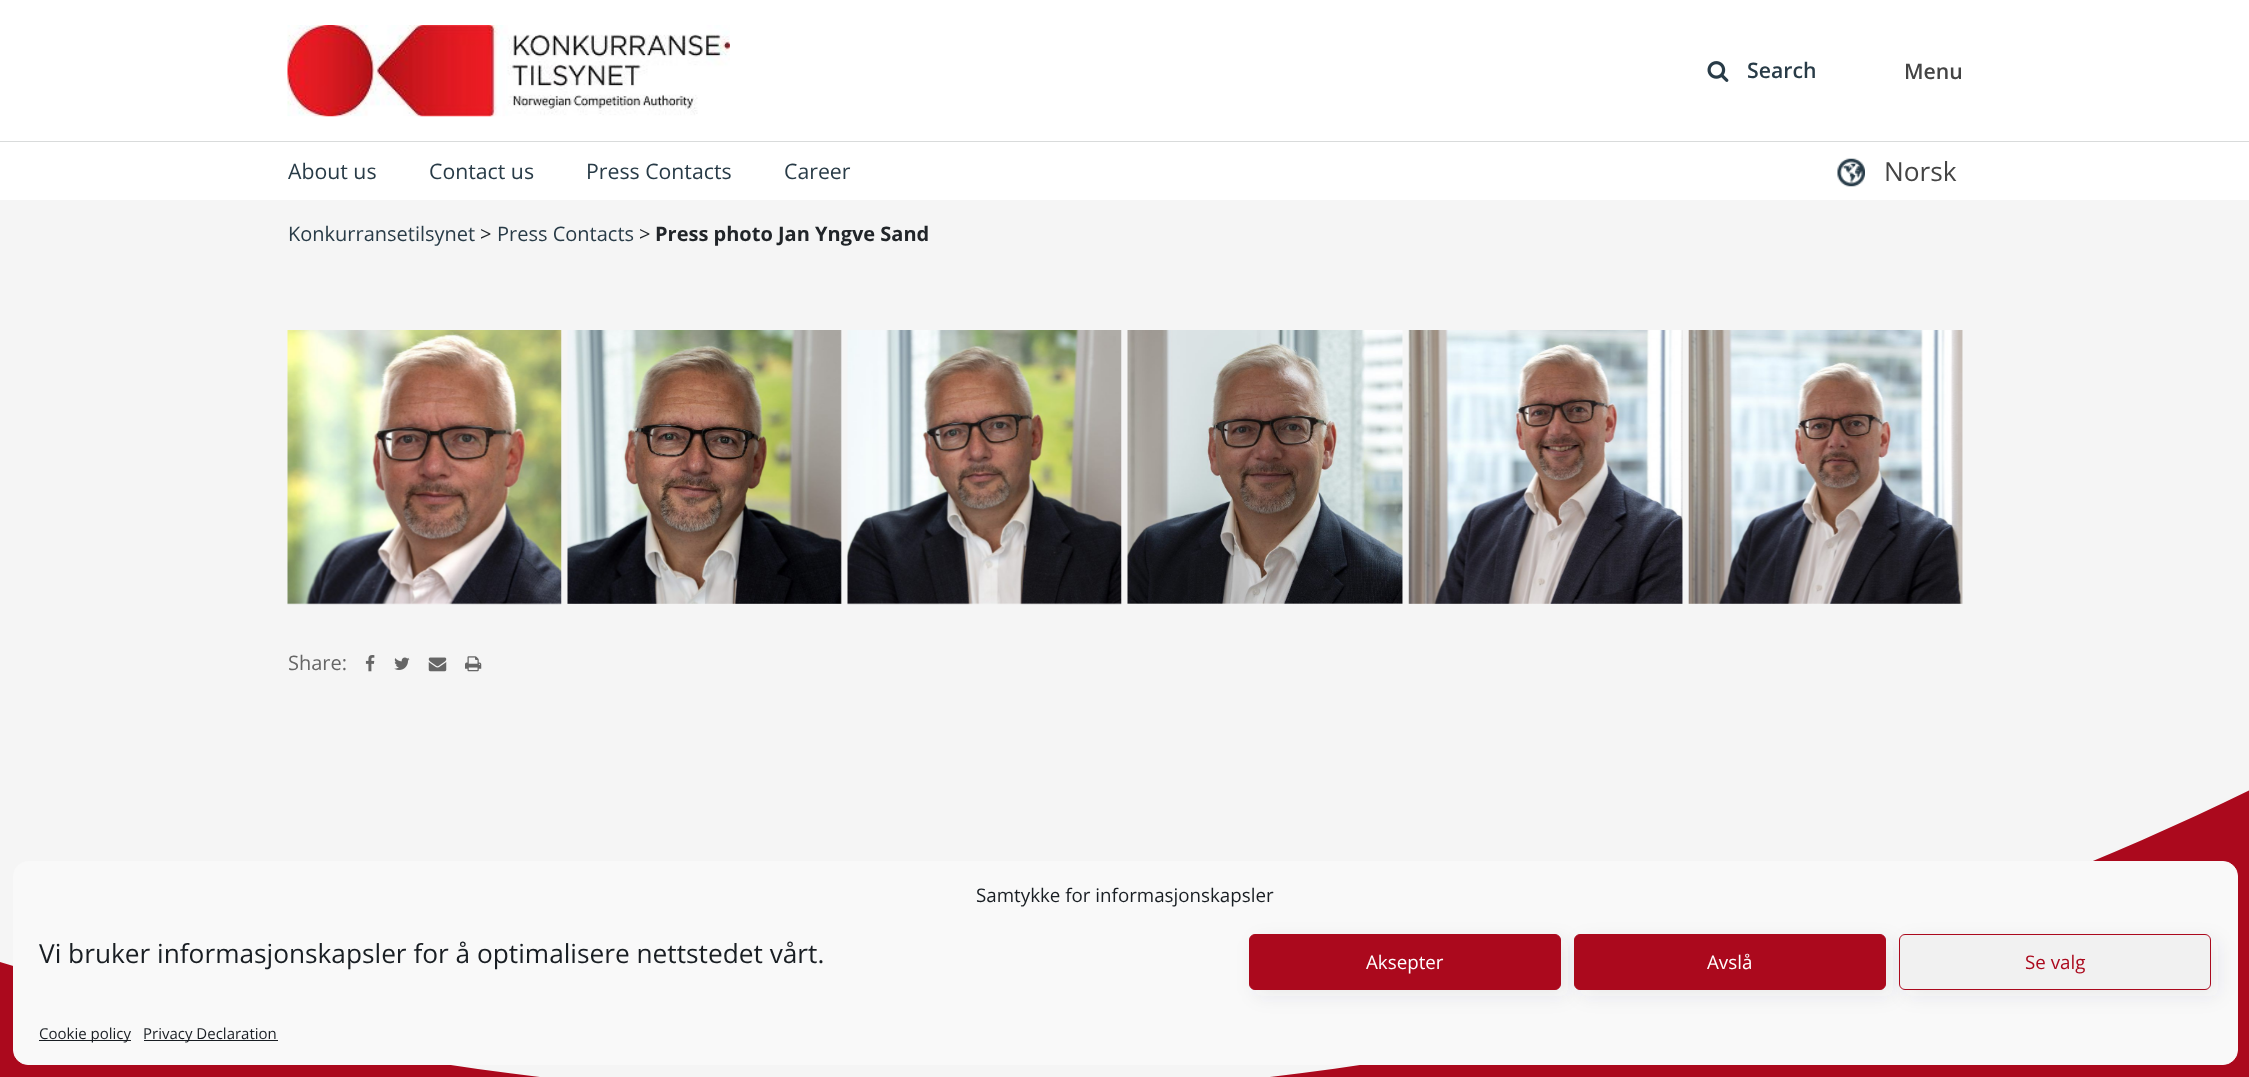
<svg xmlns="http://www.w3.org/2000/svg" width="2249" height="1077" viewBox="0 0 2249 1077">
  <defs>
    <filter id="blur1" x="-50%" y="-200%" width="200%" height="500%"><feGaussianBlur stdDeviation="9.5"/></filter>
  </defs>
  <rect width="100%" height="100%" fill="#f5f5f5"/>
  <rect x="0" y="0" width="2249" height="141" fill="#ffffff"/>
  <image x="287" y="25" width="443" height="92" href="img1.png"/>
  <image x="1707" y="61" width="22" height="21" href="img2.png"/>
  <text x="1747" y="78" font-family="Open Sans" font-size="21.25" font-weight="600" fill="#283b47">Search</text>
  <text x="1904" y="79" font-family="Open Sans" font-size="21.25" font-weight="600" fill="#444444">Menu</text>
  <rect x="0" y="142" width="2249" height="58" fill="#ffffff"/>
  <rect x="0" y="141" width="2249" height="1" fill="#d9dbdb"/>
  <text x="288" y="179" font-family="Open Sans" font-size="21.25" fill="#283b47">About us</text>
  <text x="429" y="179" font-family="Open Sans" font-size="21.25" fill="#283b47">Contact us</text>
  <text x="586" y="179" font-family="Open Sans" font-size="21.25" fill="#283b47">Press Contacts</text>
  <text x="784" y="179" font-family="Open Sans" font-size="21.25" fill="#283b47">Career</text>
  <image x="1837" y="158" width="28" height="29" href="img3.png"/>
  <text x="1884" y="181" font-family="Open Sans" font-size="26.25" fill="#444444">Norsk</text>
  <text x="288" y="241" font-family="Open Sans" font-size="20" fill="#283b47">Konkurransetilsynet</text>
  <text x="480" y="241" font-family="Open Sans" font-size="20" fill="#212529">&gt;</text>
  <text x="497" y="241" font-family="Open Sans" font-size="20" fill="#283b47">Press Contacts</text>
  <text x="639" y="241" font-family="Open Sans" font-size="20" fill="#212529">&gt;</text>
  <text x="655" y="241" font-family="Open Sans" font-size="20" font-weight="bold" fill="#212529">Press photo Jan Yngve Sand</text>
  <image x="287" y="330" width="275" height="275" href="img4.png"/>
  <image x="567" y="330" width="275" height="274" href="img5.png"/>
  <image x="847" y="330" width="275" height="275" href="img6.png"/>
  <image x="1127" y="330" width="276" height="274" href="img7.png"/>
  <image x="1408" y="330" width="275" height="274" href="img8.png"/>
  <image x="1688" y="330" width="275" height="274" href="img9.png"/>
  <text x="288" y="670" font-family="Open Sans" font-size="20" fill="#666666">Share:</text>
  <image x="365" y="655" width="10" height="17" href="img10.png"/>
  <image x="394" y="657" width="16" height="13" href="img11.png"/>
  <image x="428" y="657" width="19" height="15" href="img12.png"/>
  <image x="465" y="656" width="17" height="16" href="img13.png"/>
  <image x="0" y="790" width="2249" height="287" href="img14.png"/>
  <rect x="13.5" y="861.5" width="2224" height="203" rx="14.5" fill="#f9f9f9" stroke="#f9f9f9"/>
  <text x="976" y="902" font-family="Open Sans" font-size="18.75" fill="#191e23">Samtykke for informasjonskapsler</text>
  <text x="39" y="963" font-family="Open Sans" font-size="26.25" fill="#191e23">Vi bruker informasjonskapsler for å optimalisere nettstedet vårt.</text>
  <rect x="1255" y="940" width="313" height="56" rx="6" fill="#32325a" fill-opacity="0.08" filter="url(#blur1)"/>
  <rect x="1249.5" y="934.5" width="311" height="55" rx="5.5" fill="#ab091d" stroke="#ab091d"/>
  <text x="1366" y="969" font-family="Open Sans" font-size="18.75" fill="#ffffff">Aksepter</text>
  <rect x="1580" y="940" width="313" height="56" rx="6" fill="#32325a" fill-opacity="0.08" filter="url(#blur1)"/>
  <rect x="1574.5" y="934.5" width="311" height="55" rx="5.5" fill="#ab091d" stroke="#ab091d"/>
  <text x="1707" y="969" font-family="Open Sans" font-size="18.75" fill="#ffffff">Avslå</text>
  <rect x="1905" y="940" width="313" height="56" rx="6" fill="#32325a" fill-opacity="0.08" filter="url(#blur1)"/>
  <rect x="1899.5" y="934.5" width="311" height="55" rx="5.5" fill="#f1f1f1" stroke="#ab091d"/>
  <text x="2025" y="969" font-family="Open Sans" font-size="18.75" fill="#ab091d">Se valg</text>
  <rect x="39" y="1040" width="92" height="1" fill="#191e23"/>
  <text x="39" y="1039" font-family="Open Sans" font-size="15" fill="#191e23">Cookie policy</text>
  <rect x="144" y="1040" width="134" height="1" fill="#191e23"/>
  <text x="143" y="1039" font-family="Open Sans" font-size="15" fill="#191e23">Privacy Declaration</text>
</svg>
